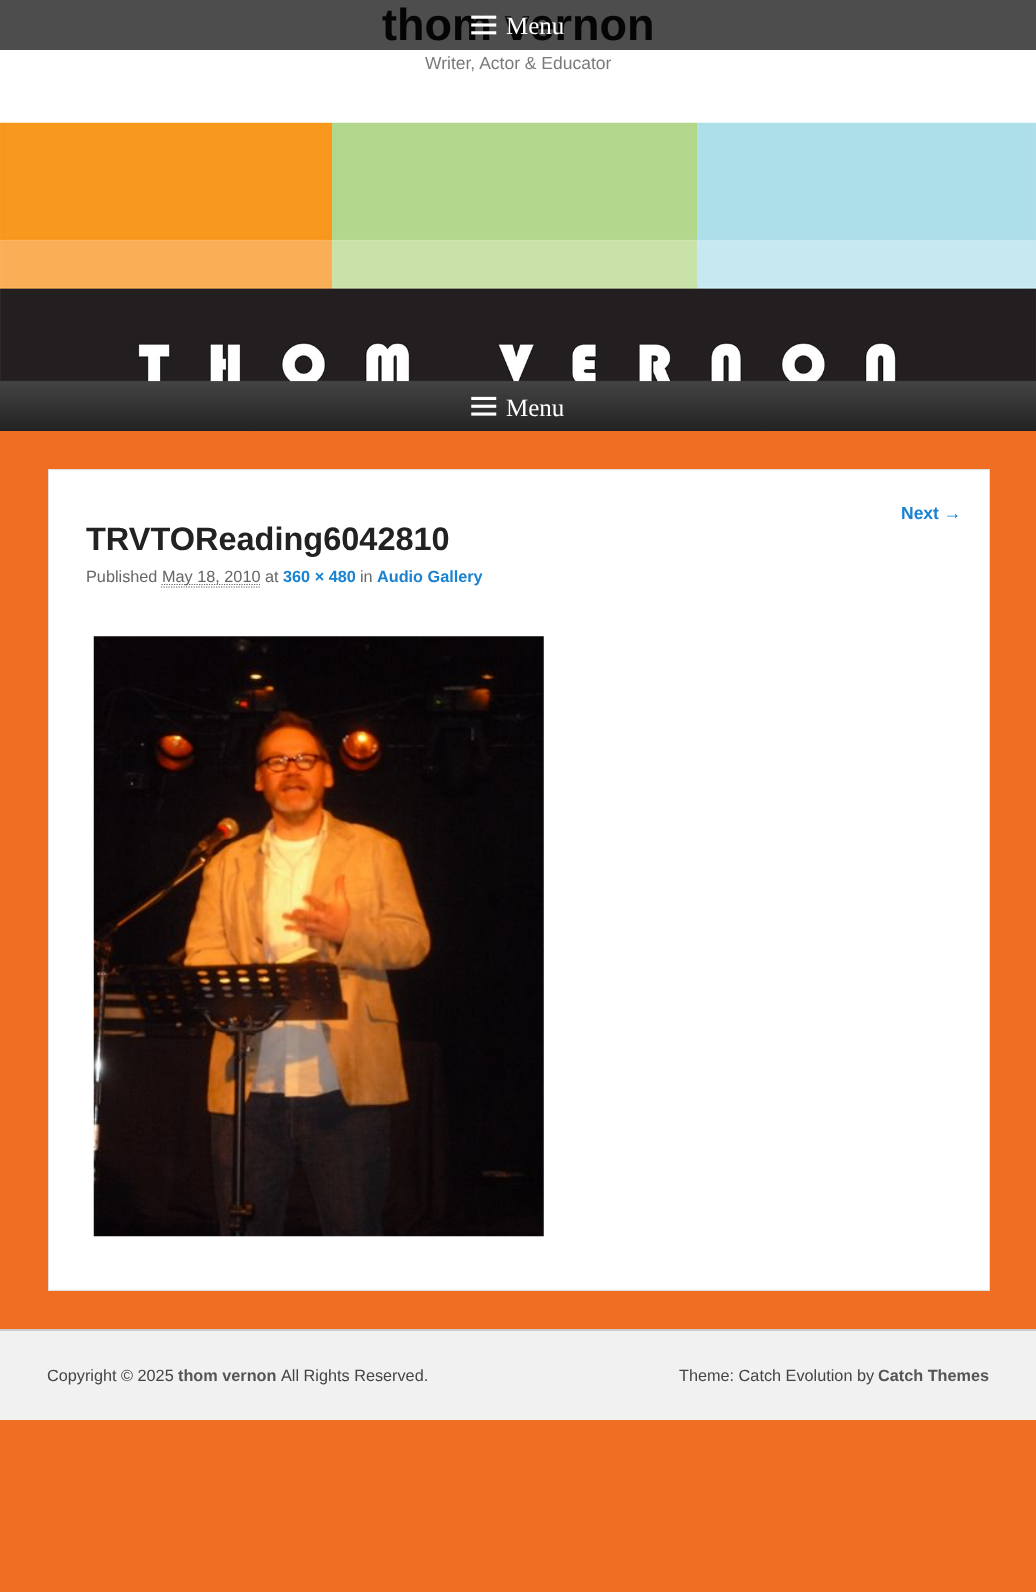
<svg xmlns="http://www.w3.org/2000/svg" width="1036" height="1592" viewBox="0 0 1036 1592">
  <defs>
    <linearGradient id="g1" gradientUnits="userSpaceOnUse" x1="518" y1="381" x2="518" y2="431"><stop offset="0" stop-color="#444444"/><stop offset="1" stop-color="#222222"/></linearGradient>
  </defs>
  <rect width="100%" height="100%" fill="#ef6e23"/>
  <rect x="0" y="50" width="1036" height="73" fill="#ffffff"/>
  <rect x="0" y="0" width="1036" height="50" fill="#4d4d4d"/>
  <text x="382" y="40" font-family="Liberation Sans" font-size="45" font-weight="bold" fill="#050505">thom vernon</text>
  <text x="425" y="69" font-family="Liberation Sans" font-size="17.5" fill="#7a7a7a">Writer, Actor &amp; Educator</text>
  <rect x="0" y="381" width="1036" height="50" fill="url(#g1)"/>
  <image x="0" y="122" width="1036" height="260" href="img1.png"/>
  <image x="471" y="15" width="26" height="20" href="img2.png"/>
  <text x="506" y="34" font-family="Liberation Serif" font-size="25" fill="#ffffff">Menu</text>
  <image x="471" y="396" width="26" height="20" href="img3.png"/>
  <text x="506" y="416" font-family="Liberation Serif" font-size="25" fill="#ffffff">Menu</text>
  <rect x="48.5" y="469.5" width="941" height="821" fill="#ffffff" stroke="#dddddd"/>
  <text x="901" y="519" font-family="Liberation Sans" font-size="17.5" font-weight="bold" fill="#1982d1">Next →</text>
  <text x="86" y="550" font-family="Liberation Sans" font-size="32.5" font-weight="bold" fill="#222222">TRVTOReading6042810</text>
  <text x="86" y="582" font-family="Liberation Sans" font-size="16.25" fill="#666666">Published</text>
  <path d="M161.5 584.5H260" fill="none" stroke="#666666" stroke-width="1.2" stroke-dasharray="1.25 1.25"/>
  <text x="162" y="582" font-family="Liberation Sans" font-size="16.25" fill="#666666">May 18, 2010 at</text>
  <path d="M161 587H260" fill="none" stroke="#666666" stroke-width="1.2" stroke-dasharray="1.25 1.25"/>
  <text x="283" y="582" font-family="Liberation Sans" font-size="16.25" font-weight="bold" fill="#1982d1">360 × 480</text>
  <text x="360" y="582" font-family="Liberation Sans" font-size="16.25" fill="#666666">in</text>
  <text x="377" y="582" font-family="Liberation Sans" font-size="16.25" font-weight="bold" fill="#1982d1">Audio Gallery</text>
  <image x="93" y="636" width="451" height="601" href="img4.png"/>
  <rect x="0" y="1329" width="1036" height="2" fill="#cccccc"/>
  <rect x="0" y="1331" width="1036" height="89" fill="#f1f1f1"/>
  <text x="47" y="1381" font-family="Liberation Sans" font-size="16.25" fill="#444444">Copyright © 2025</text>
  <text x="178" y="1381" font-family="Liberation Sans" font-size="16.25" font-weight="bold" fill="#555555">thom vernon</text>
  <text x="281" y="1381" font-family="Liberation Sans" font-size="16.25" fill="#444444">All Rights Reserved.</text>
  <text x="679" y="1381" font-family="Liberation Sans" font-size="16.25" fill="#444444">Theme: Catch Evolution by</text>
  <text x="878" y="1381" font-family="Liberation Sans" font-size="16.25" font-weight="bold" fill="#555555">Catch Themes</text>
</svg>
